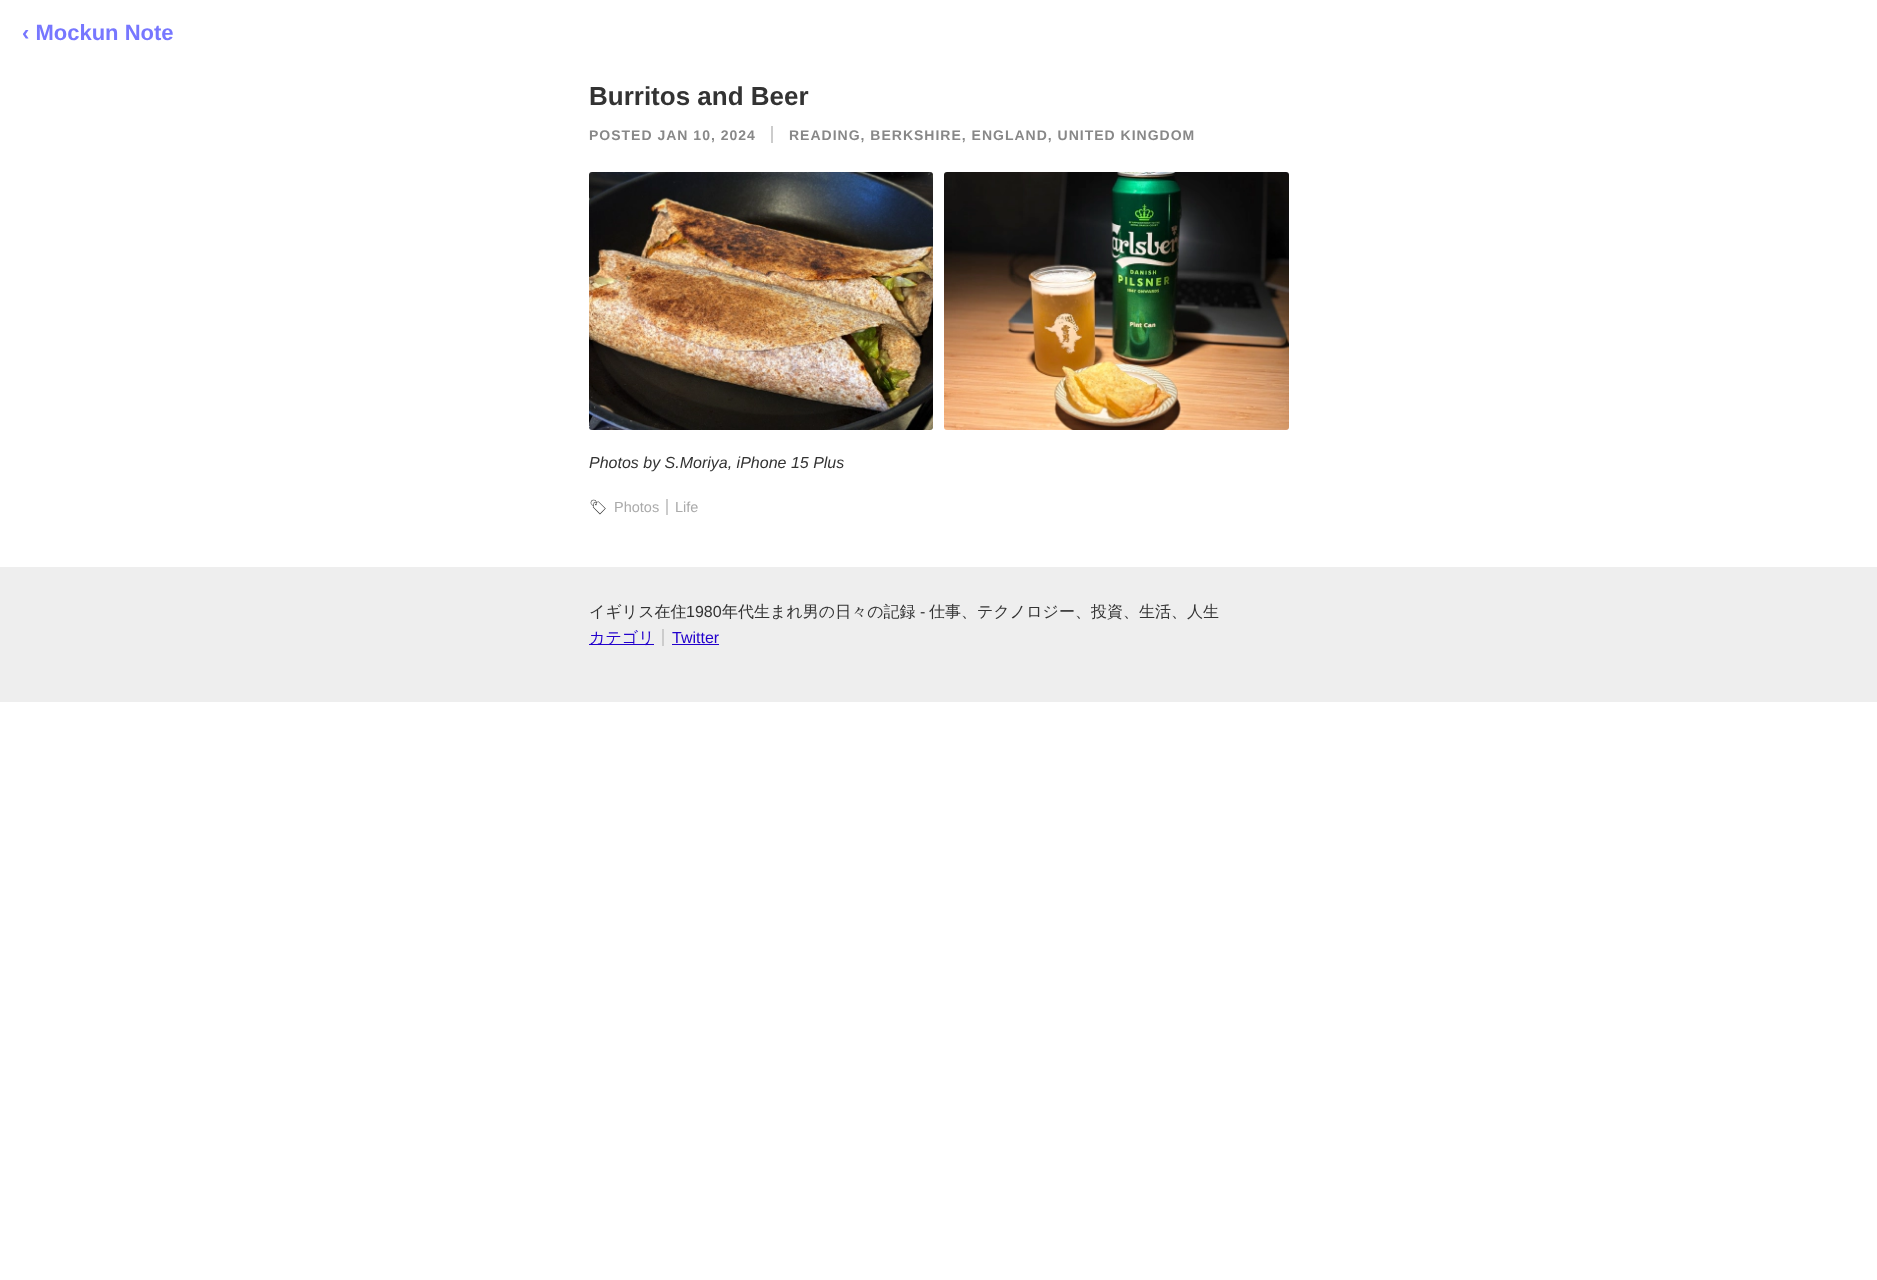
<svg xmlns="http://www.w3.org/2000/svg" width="1877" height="1280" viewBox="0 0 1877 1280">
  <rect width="100%" height="100%" fill="#ffffff"/>
  <text x="22" y="40" font-family="Liberation Sans" font-size="22" font-weight="bold" fill="#7777ff">‹ Mockun Note</text>
  <text x="589" y="105" font-family="Liberation Sans" font-size="26" font-weight="bold" fill="#333333">Burritos and Beer</text>
  <text x="589" y="140" font-family="Liberation Sans" font-size="14" font-weight="bold" letter-spacing="1" fill="#888888">POSTED JAN 10, 2024</text>
  <text x="789" y="140" font-family="Liberation Sans" font-size="14" font-weight="bold" letter-spacing="1" fill="#888888">READING, BERKSHIRE, ENGLAND, UNITED KINGDOM</text>
  <rect x="771" y="126" width="2" height="17" fill="#cccccc"/>
  <image x="589" y="172" width="344" height="258" href="img1.png"/>
  <image x="944" y="172" width="345" height="258" href="img2.png"/>
  <text x="589" y="468" font-family="Liberation Sans" font-size="16" font-style="italic" fill="#333333">Photos by S.Moriya, iPhone 15 Plus</text>
  <text x="589" y="512" font-family="Noto Emoji" font-size="14.5" fill="#333333">🏷</text>
  <text x="614" y="512" font-family="Liberation Sans" font-size="14.5" fill="#aaaaaa">Photos</text>
  <rect x="666" y="499" width="2" height="16" fill="#cccccc"/>
  <text x="675" y="512" font-family="Liberation Sans" font-size="14.5" fill="#aaaaaa">Life</text>
  <rect x="0" y="567" width="1877" height="135" fill="#eeeeee"/>
  <text x="589" y="617" font-family="WenQuanYi Zen Hei" font-size="16" font-weight="500" fill="#333333">イギリス在住</text>
  <text x="686" y="617" font-family="Liberation Sans" font-size="16" fill="#333333">1980</text>
  <text x="722" y="617" font-family="WenQuanYi Zen Hei" font-size="16" font-weight="500" fill="#333333">年代生まれ男の日々の記録</text>
  <text x="920" y="617" font-family="Liberation Sans" font-size="16" fill="#333333">-</text>
  <text x="929" y="617" font-family="WenQuanYi Zen Hei" font-size="16" font-weight="500" fill="#333333">仕事、テクノロジー、投資、生活、人生</text>
  <rect x="589" y="644" width="65" height="1" fill="#2200cc"/>
  <text x="589" y="643" font-family="WenQuanYi Zen Hei" font-size="16" font-weight="500" fill="#2200cc">カテゴリ</text>
  <rect x="662" y="629" width="2" height="17" fill="#cccccc"/>
  <text x="672" y="643" font-family="Liberation Sans" font-size="16" fill="#2200cc">Twitter</text>
  <rect x="672" y="644" width="47" height="1" fill="#2200cc"/>
</svg>
